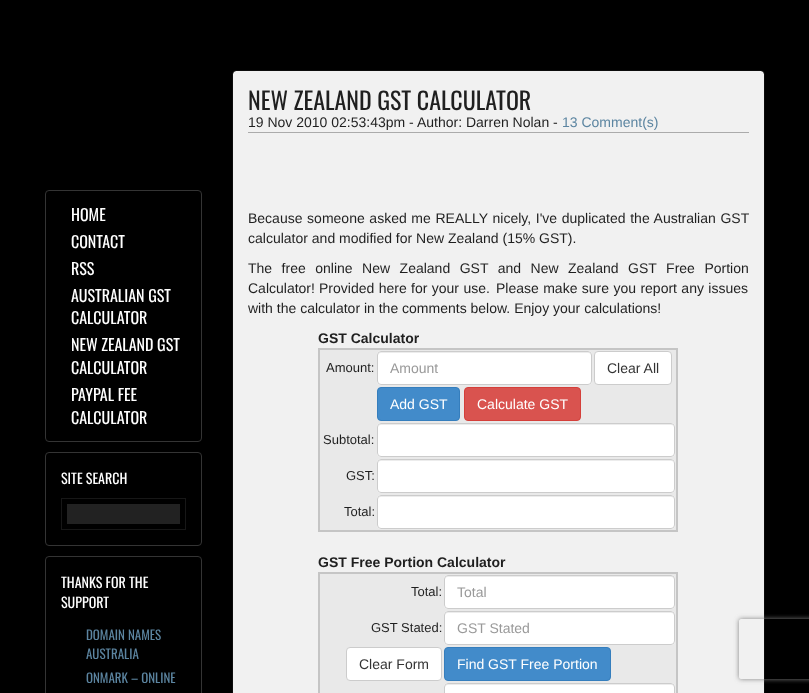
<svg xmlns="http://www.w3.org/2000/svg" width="809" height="693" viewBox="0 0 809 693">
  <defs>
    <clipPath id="clip1"><path d="M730 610H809V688H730ZM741 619H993C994 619 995 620 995 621V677C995 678 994 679 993 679H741C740 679 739 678 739 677V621C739 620 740 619 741 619Z" clip-rule="evenodd"/></clipPath>
    <filter id="blur1" x="-50%" y="-200%" width="200%" height="500%"><feGaussianBlur stdDeviation="2.5"/></filter>
  </defs>
  <rect width="100%" height="100%" fill="#000000"/>
  <rect x="45.5" y="190.5" width="156" height="251" rx="3.5" fill="none" stroke="#343434"/>
  <text x="71" y="221" font-family="Oswald" font-size="16" fill="#ffffff">HOME</text>
  <text x="71" y="248" font-family="Oswald" font-size="16" fill="#ffffff">CONTACT</text>
  <text x="71" y="275" font-family="Oswald" font-size="16" fill="#ffffff">RSS</text>
  <text x="71" y="302" font-family="Oswald" font-size="16" fill="#ffffff">AUSTRALIAN GST</text>
  <text x="71" y="324" font-family="Oswald" font-size="16" fill="#ffffff">CALCULATOR</text>
  <text x="71" y="351" font-family="Oswald" font-size="16" fill="#ffffff">NEW ZEALAND GST</text>
  <text x="71" y="374" font-family="Oswald" font-size="16" fill="#ffffff">CALCULATOR</text>
  <text x="71" y="401" font-family="Oswald" font-size="16" fill="#ffffff">PAYPAL FEE</text>
  <text x="71" y="424" font-family="Oswald" font-size="16" fill="#ffffff">CALCULATOR</text>
  <rect x="45.5" y="452.5" width="156" height="93" rx="3.5" fill="none" stroke="#343434"/>
  <text x="61" y="484" font-family="Oswald" font-size="14" fill="#ffffff">SITE SEARCH</text>
  <rect x="61.5" y="498.5" width="124" height="31" fill="none" stroke="#171717"/>
  <rect x="67" y="504" width="113" height="20" fill="#222222"/>
  <rect x="45.5" y="556.5" width="156" height="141" rx="3.5" fill="none" stroke="#343434"/>
  <text x="61" y="588" font-family="Oswald" font-size="14" fill="#ffffff">THANKS FOR THE</text>
  <text x="61" y="608" font-family="Oswald" font-size="14" fill="#ffffff">SUPPORT</text>
  <text x="86" y="640" font-family="Oswald" font-size="13" fill="#5c85a1">DOMAIN NAMES</text>
  <text x="86" y="659" font-family="Oswald" font-size="13" fill="#5c85a1">AUSTRALIA</text>
  <text x="86" y="683" font-family="Oswald" font-size="13" fill="#5c85a1">ONMARK – ONLINE</text>
  <rect x="233" y="71" width="531" height="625" rx="3" fill="#f1f1f1"/>
  <rect x="232.5" y="70.5" width="532" height="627" rx="3.5" fill="none" stroke="#0c0c0c"/>
  <text x="248" y="110" font-family="Oswald" font-size="24" fill="#1f1f1f">NEW ZEALAND GST CALCULATOR</text>
  <rect x="248" y="132" width="501" height="1" fill="#ababab"/>
  <text x="248" y="127" font-family="Liberation Sans" font-size="14" fill="#1f1f1f">19 Nov 2010 02:53:43pm - Author: Darren Nolan -</text>
  <text x="562" y="127" font-family="Liberation Sans" font-size="14" fill="#5c85a1">13 Comment(s)</text>
  <text x="248" y="223" word-spacing="0.75" font-family="Liberation Sans" font-size="14" fill="#1f1f1f">Because someone asked me REALLY nicely, I've duplicated the Australian GST</text>
  <text x="248" y="243" font-family="Liberation Sans" font-size="14" fill="#1f1f1f">calculator and modified for New Zealand (15% GST).</text>
  <text x="248" y="273" word-spacing="5.6" font-family="Liberation Sans" font-size="14" fill="#1f1f1f">The free online New Zealand GST and New Zealand GST Free Portion</text>
  <text x="248" y="293" font-family="Liberation Sans" font-size="14" fill="#1f1f1f">Calculator!</text>
  <text x="319" y="293" word-spacing="0.5" font-family="Liberation Sans" font-size="14" fill="#1f1f1f">Provided here for your use.</text>
  <text x="496" y="293" word-spacing="0.5" font-family="Liberation Sans" font-size="14" fill="#1f1f1f">Please make sure you report any issues</text>
  <text x="248" y="313" font-family="Liberation Sans" font-size="14" fill="#1f1f1f">with the calculator in the comments below. Enjoy your calculations!</text>
  <text x="318" y="343" font-family="Liberation Sans" font-size="14" font-weight="bold" fill="#1f1f1f">GST Calculator</text>
  <rect x="320" y="350" width="356" height="180" fill="#e9e9e9"/>
  <rect x="318" y="348" width="360" height="2" fill="#c5c5c5"/>
  <rect x="676" y="348" width="2" height="184" fill="#c5c5c5"/>
  <rect x="318" y="530" width="360" height="2" fill="#c5c5c5"/>
  <rect x="318" y="348" width="2" height="184" fill="#c5c5c5"/>
  <text x="326" y="372" font-family="Liberation Sans" font-size="13" fill="#1f1f1f">Amount:</text>
  <rect x="377" y="351" width="215" height="34" rx="4" fill="#ffffff"/>
  <path d="M381 353H588C590 353 591 354 591 356V355C591 353 590 352 588 352H381C379 352 378 353 378 355V356C378 354 379 353 381 353Z" fill="#ececec"/>
  <rect x="377.5" y="351.5" width="214" height="33" rx="3.5" fill="none" stroke="#cccccc"/>
  <text x="390" y="373" font-family="Liberation Sans" font-size="14" fill="#999999">Amount</text>
  <rect x="594.5" y="351.5" width="77" height="33" rx="3.5" fill="#ffffff" stroke="#cccccc"/>
  <text x="607" y="373" font-family="Liberation Sans" font-size="14" fill="#333333">Clear All</text>
  <rect x="377.5" y="387.5" width="82" height="33" rx="3.5" fill="#428bca" stroke="#357ebd"/>
  <text x="390" y="409" font-family="Liberation Sans" font-size="14" fill="#ffffff">Add GST</text>
  <rect x="464.5" y="387.5" width="116" height="33" rx="3.5" fill="#d9534f" stroke="#d43f3a"/>
  <text x="477" y="409" font-family="Liberation Sans" font-size="14" fill="#ffffff">Calculate GST</text>
  <text x="323" y="444" font-family="Liberation Sans" font-size="13" fill="#1f1f1f">Subtotal:</text>
  <rect x="377" y="423" width="298" height="34" rx="4" fill="#ffffff"/>
  <path d="M381 425H671C673 425 674 426 674 428L673 425L672 424H381C379 424 378 426 378 428C378 426 379 425 381 425Z" fill="#ececec"/>
  <rect x="377.5" y="423.5" width="297" height="33" rx="3.5" fill="none" stroke="#cccccc"/>
  <text x="346" y="480" font-family="Liberation Sans" font-size="13" fill="#1f1f1f">GST:</text>
  <rect x="377" y="459" width="298" height="34" rx="4" fill="#ffffff"/>
  <path d="M381 461H671C673 461 674 462 674 464L673 461L672 460H381C379 460 378 462 378 464C378 462 379 461 381 461Z" fill="#ececec"/>
  <rect x="377.5" y="459.5" width="297" height="33" rx="3.5" fill="none" stroke="#cccccc"/>
  <text x="344" y="516" font-family="Liberation Sans" font-size="13" fill="#1f1f1f">Total:</text>
  <rect x="377" y="495" width="298" height="34" rx="4" fill="#ffffff"/>
  <path d="M381 497H671C673 497 674 498 674 500L673 497L672 496H381C379 496 378 498 378 500C378 498 379 497 381 497Z" fill="#ececec"/>
  <rect x="377.5" y="495.5" width="297" height="33" rx="3.5" fill="none" stroke="#cccccc"/>
  <text x="318" y="567" font-family="Liberation Sans" font-size="14" font-weight="bold" fill="#1f1f1f">GST Free Portion Calculator</text>
  <rect x="320" y="574" width="356" height="119" fill="#e9e9e9"/>
  <rect x="318" y="572" width="360" height="2" fill="#c5c5c5"/>
  <rect x="676" y="572" width="2" height="121" fill="#c5c5c5"/>
  <rect x="318" y="572" width="2" height="121" fill="#c5c5c5"/>
  <text x="411" y="596" font-family="Liberation Sans" font-size="13" fill="#1f1f1f">Total:</text>
  <rect x="444" y="575" width="231" height="34" rx="4" fill="#ffffff"/>
  <path d="M448 577H671C673 577 674 578 674 580V579C674 577 673 576 671 576H448C446 576 445 577 445 579V580C445 578 446 577 448 577Z" fill="#ececec"/>
  <rect x="444.5" y="575.5" width="230" height="33" rx="3.5" fill="none" stroke="#cccccc"/>
  <text x="457" y="597" font-family="Liberation Sans" font-size="14" fill="#999999">Total</text>
  <text x="371" y="632" font-family="Liberation Sans" font-size="13" fill="#1f1f1f">GST Stated:</text>
  <rect x="444" y="611" width="231" height="34" rx="4" fill="#ffffff"/>
  <path d="M448 613H671C673 613 674 614 674 616V615C674 613 673 612 671 612H448C446 612 445 613 445 615V616C445 614 446 613 448 613Z" fill="#ececec"/>
  <rect x="444.5" y="611.5" width="230" height="33" rx="3.5" fill="none" stroke="#cccccc"/>
  <text x="457" y="633" font-family="Liberation Sans" font-size="14" fill="#999999">GST Stated</text>
  <rect x="346.5" y="647.5" width="95" height="33" rx="3.5" fill="#ffffff" stroke="#cccccc"/>
  <text x="359" y="669" font-family="Liberation Sans" font-size="14" fill="#333333">Clear Form</text>
  <rect x="444.5" y="647.5" width="166" height="33" rx="3.5" fill="#428bca" stroke="#357ebd"/>
  <text x="457" y="669" font-family="Liberation Sans" font-size="14" fill="#ffffff">Find GST Free Portion</text>
  <rect x="444" y="683" width="231" height="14" rx="4" fill="#ffffff"/>
  <path d="M448 685H671C673 685 674 686 674 688V687C674 685 673 684 671 684H448C446 684 445 685 445 687V688C445 686 446 685 448 685Z" fill="#ececec"/>
  <rect x="444.5" y="683.5" width="230" height="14" rx="3.5" fill="none" stroke="#cccccc"/>
  <g clip-path="url(#clip1)">
    <rect x="739" y="619" width="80" height="60" rx="2" fill="#808080" filter="url(#blur1)"/>
  </g>
</svg>
